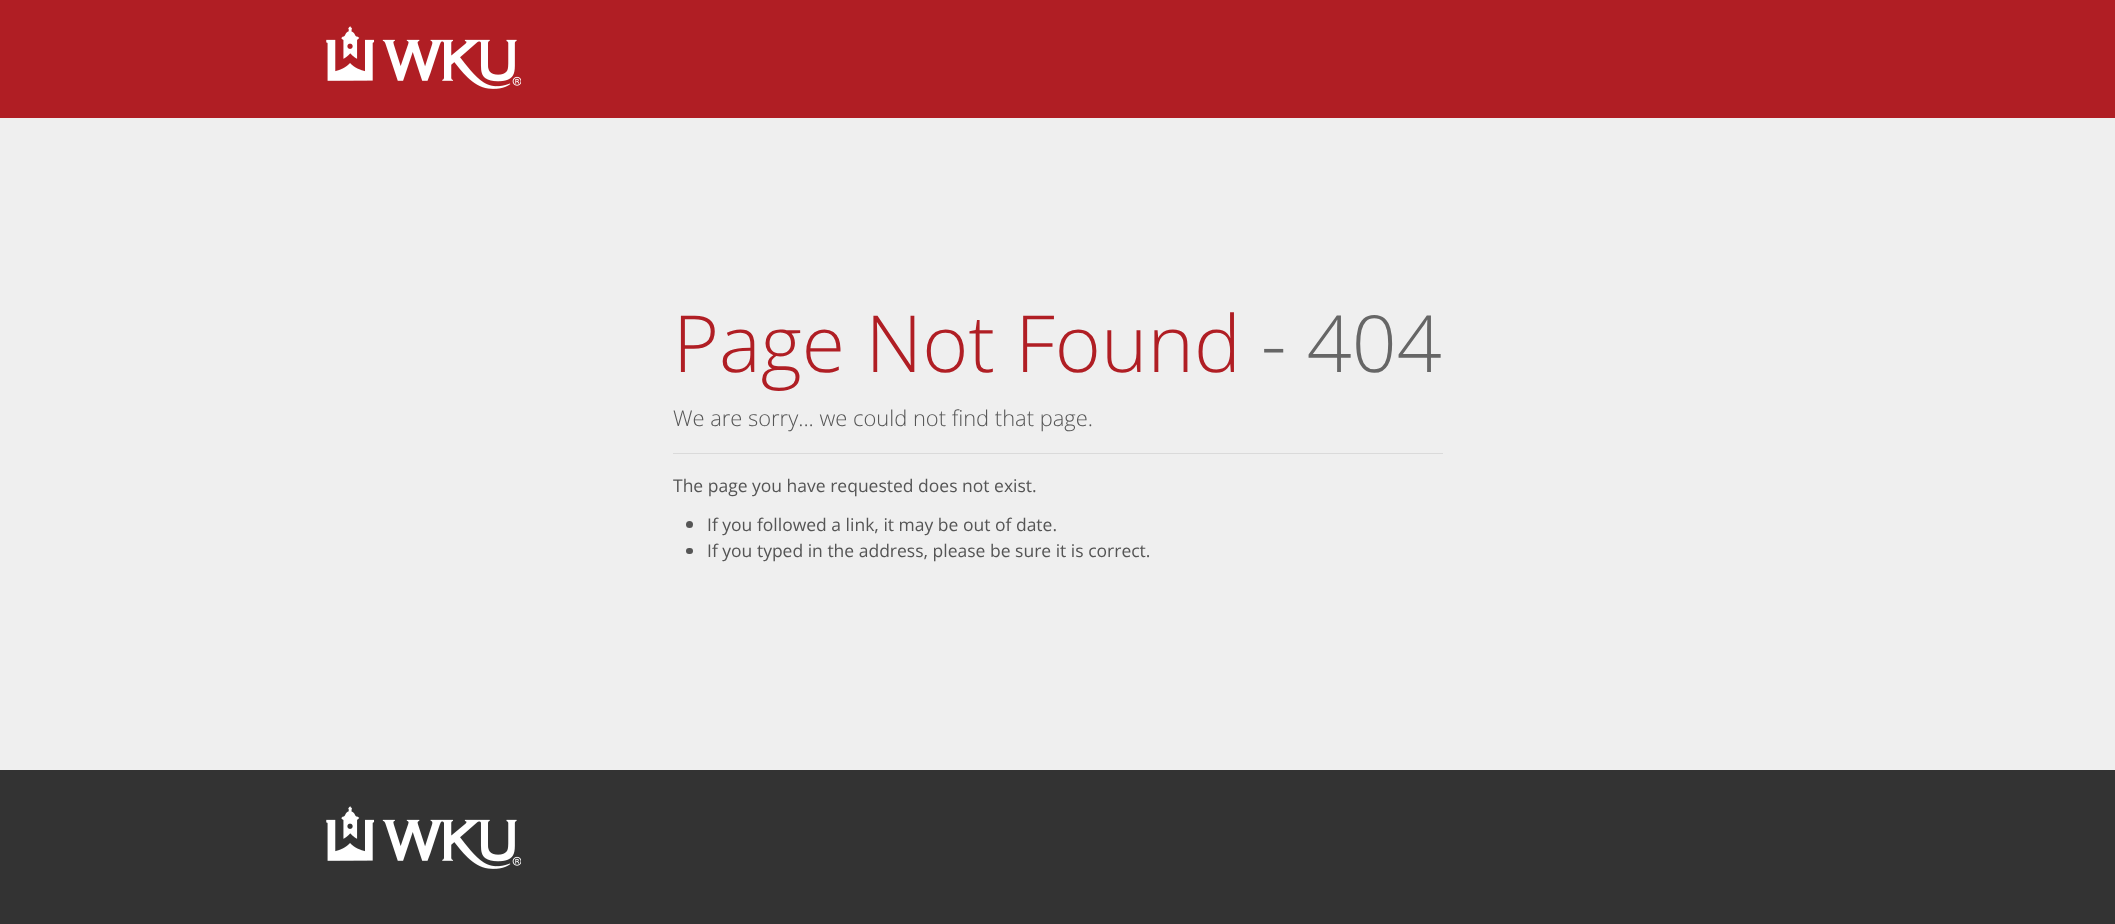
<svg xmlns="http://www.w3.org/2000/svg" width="2115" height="924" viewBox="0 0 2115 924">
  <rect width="100%" height="100%" fill="#b01e24"/>
  <image x="326" y="26" width="195" height="63" href="img1.png"/>
  <rect x="0" y="118" width="2115" height="652" fill="#efefef"/>
  <text x="673" y="372" font-family="Open Sans" font-size="78.75" font-weight="300" fill="#b01e24">Page Not Found</text>
  <text x="1261" y="372" font-family="Open Sans" font-size="78.75" font-weight="300" fill="#666666">- 404</text>
  <text x="673" y="426" font-family="Open Sans" font-size="21.9" font-weight="300" fill="#555555">We are sorry... we could not find that page.</text>
  <rect x="673" y="453" width="770" height="1" fill="#dadada"/>
  <text x="673" y="492" font-family="Open Sans" font-size="17.5" fill="#555555">The page you have requested does not exist.</text>
  <circle cx="689.5" cy="524.5" r="3.5" fill="#555555"/>
  <text x="707" y="531" font-family="Open Sans" font-size="17.5" fill="#555555">If you followed a link, it may be out of date.</text>
  <rect x="686" y="548" width="7" height="6" rx="3" fill="#555555"/>
  <text x="707" y="557" font-family="Open Sans" font-size="17.5" fill="#555555">If you typed in the address, please be sure it is correct.</text>
  <rect x="0" y="770" width="2115" height="154" fill="#333333"/>
  <image x="326" y="806" width="195" height="63" href="img2.png"/>
</svg>
